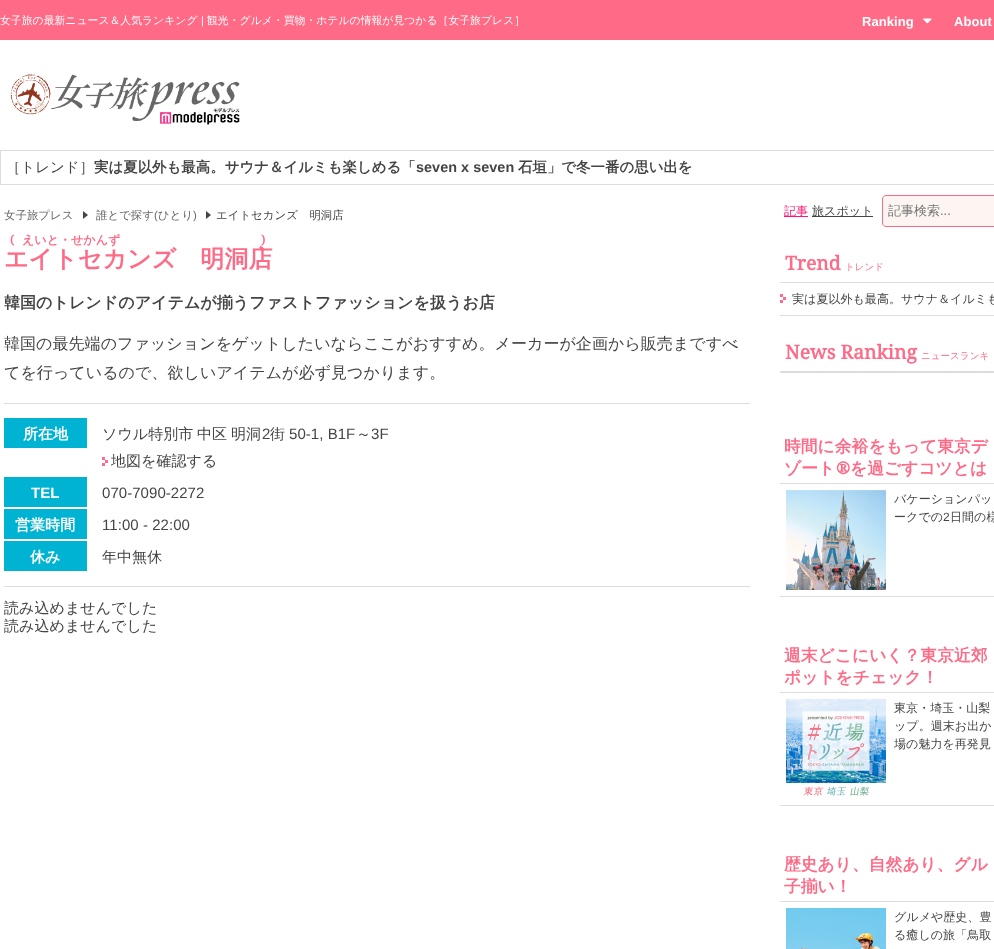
<svg xmlns="http://www.w3.org/2000/svg" width="994" height="949" viewBox="0 0 994 949">
  <rect width="100%" height="100%" fill="#ffffff"/>
  <rect x="0" y="0" width="994" height="40" fill="#ff6a86"/>
  <text x="0" y="24" font-family="WenQuanYi Zen Hei" font-size="10.8" font-weight="500" letter-spacing="0.05" fill="#ffffff">女子旅の最新ニュース＆人気ランキング</text>
  <text x="201" y="24" font-family="Liberation Sans" font-size="10.8" letter-spacing="0.05" fill="#ffffff">|</text>
  <text x="207" y="24" font-family="WenQuanYi Zen Hei" font-size="10.8" font-weight="500" letter-spacing="0.05" fill="#ffffff">観光・グルメ・買物・ホテルの情報が見つかる［女子旅プレス］</text>
  <text x="862" y="26" font-family="Liberation Sans" font-size="13" font-weight="bold" letter-spacing="0.05" fill="#ffffff">Ranking</text>
  <image x="923" y="18" width="9" height="6" href="img1.png"/>
  <text x="954" y="26" font-family="Liberation Sans" font-size="13" font-weight="bold" letter-spacing="0.05" fill="#ffffff">About</text>
  <image x="10" y="74" width="230" height="51" href="img2.png"/>
  <rect x="0.5" y="150.5" width="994" height="34" fill="none" stroke="#dddddd"/>
  <text x="6" y="172" font-family="WenQuanYi Zen Hei" font-size="14.4" font-weight="500" letter-spacing="0.05" fill="#444444">［トレンド］</text>
  <text x="94" y="172" font-family="WenQuanYi Zen Hei" font-size="14.4" font-weight="bold" letter-spacing="0.05" fill="#444444">実は夏以外も最高。サウナ＆イルミも楽しめる「</text>
  <text x="416" y="172" font-family="Liberation Sans" font-size="14.4" font-weight="bold" letter-spacing="0.05" fill="#444444">seven x seven</text>
  <text x="518" y="172" font-family="WenQuanYi Zen Hei" font-size="14.4" font-weight="bold" letter-spacing="0.05" fill="#444444">石垣」で冬一番の思い出を</text>
  <text x="4" y="219" font-family="WenQuanYi Zen Hei" font-size="11.4" font-weight="500" letter-spacing="0.05" fill="#666666">女子旅プレス</text>
  <path d="M83 219V211L88 215Z" fill="#444444"/>
  <text x="96" y="219" font-family="WenQuanYi Zen Hei" font-size="11.4" font-weight="500" letter-spacing="0.05" fill="#666666">誰とで探す</text>
  <text x="154" y="219" font-family="Liberation Sans" font-size="11.4" letter-spacing="0.05" fill="#666666">(</text>
  <text x="158" y="219" font-family="WenQuanYi Zen Hei" font-size="11.4" font-weight="500" letter-spacing="0.05" fill="#666666">ひとり</text>
  <text x="193" y="219" font-family="Liberation Sans" font-size="11.4" letter-spacing="0.05" fill="#666666">)</text>
  <path d="M206 219V211L211 215Z" fill="#444444"/>
  <text x="216" y="219" font-family="WenQuanYi Zen Hei" font-size="11.4" font-weight="500" letter-spacing="0.05" fill="#444444">エイトセカンズ　明洞店</text>
  <text x="10" y="244" font-family="Droid Serif" font-size="12" font-weight="bold" letter-spacing="0.05" fill="#ff6a86">(</text>
  <text x="22" y="244" font-family="WenQuanYi Zen Hei" font-size="12" font-weight="bold" letter-spacing="0.05" fill="#ff6a86">えいと・せかんず</text>
  <text x="261" y="244" font-family="Droid Serif" font-size="12" font-weight="bold" letter-spacing="0.05" fill="#ff6a86">)</text>
  <text x="4" y="267" font-family="WenQuanYi Zen Hei" font-size="24" font-weight="bold" letter-spacing="0.05" fill="#ff6a86">エイトセカンズ　明洞店</text>
  <text x="4" y="308" font-family="WenQuanYi Zen Hei" font-size="16" font-weight="bold" letter-spacing="0.05" fill="#444444">韓国のトレンドのアイテムが揃うファストファッションを扱うお店</text>
  <rect x="4" y="403" width="746" height="1" fill="#dddddd"/>
  <text x="4" y="349" font-family="WenQuanYi Zen Hei" font-size="16" font-weight="500" letter-spacing="0.05" fill="#444444">韓国の最先端のファッションをゲットしたいならここがおすすめ。メーカーが企画から販売まですべ</text>
  <text x="4" y="378" font-family="WenQuanYi Zen Hei" font-size="16" font-weight="500" letter-spacing="0.05" fill="#444444">てを行っているので、欲しいアイテムが必ず見つかります。</text>
  <rect x="4" y="586" width="746" height="1" fill="#dddddd"/>
  <rect x="4" y="418" width="83" height="30" fill="#00b3d3"/>
  <text x="23" y="439" font-family="WenQuanYi Zen Hei" font-size="15" font-weight="bold" letter-spacing="0.05" fill="#ffffff">所在地</text>
  <text x="102" y="439" font-family="WenQuanYi Zen Hei" font-size="15" font-weight="500" letter-spacing="0.05" fill="#444444">ソウル特別市</text>
  <text x="197" y="439" font-family="WenQuanYi Zen Hei" font-size="15" font-weight="500" letter-spacing="0.05" fill="#444444">中区</text>
  <text x="231" y="439" font-family="WenQuanYi Zen Hei" font-size="15" font-weight="500" letter-spacing="0.05" fill="#444444">明洞</text>
  <text x="262" y="439" font-family="Liberation Sans" font-size="15" letter-spacing="0.05" fill="#444444">2</text>
  <text x="270" y="439" font-family="WenQuanYi Zen Hei" font-size="15" font-weight="500" letter-spacing="0.05" fill="#444444">街</text>
  <text x="289" y="439" font-family="Liberation Sans" font-size="15" letter-spacing="0.05" fill="#444444">50-1, B1F</text>
  <text x="356" y="439" font-family="WenQuanYi Zen Hei" font-size="15" font-weight="500" letter-spacing="0.05" fill="#444444">～</text>
  <text x="371" y="439" font-family="Liberation Sans" font-size="15" letter-spacing="0.05" fill="#444444">3F</text>
  <rect x="102" y="457" width="3" height="3" fill="#ff6a86"/>
  <rect x="105" y="460" width="3" height="3" fill="#ff6a86"/>
  <rect x="102" y="463" width="3" height="3" fill="#ff6a86"/>
  <text x="111" y="466" font-family="WenQuanYi Zen Hei" font-size="15" font-weight="500" letter-spacing="0.05" fill="#444444">地図を確認する</text>
  <rect x="4" y="477" width="83" height="30" fill="#00b3d3"/>
  <text x="31" y="498" font-family="Liberation Sans" font-size="15" font-weight="bold" letter-spacing="0.05" fill="#ffffff">TEL</text>
  <text x="102" y="498" font-family="Liberation Sans" font-size="15" letter-spacing="0.05" fill="#444444">070-7090-2272</text>
  <rect x="4" y="509" width="83" height="30" fill="#00b3d3"/>
  <text x="15" y="530" font-family="WenQuanYi Zen Hei" font-size="15" font-weight="bold" letter-spacing="0.05" fill="#ffffff">営業時間</text>
  <text x="102" y="530" font-family="Liberation Sans" font-size="15" letter-spacing="0.05" fill="#444444">11:00 - 22:00</text>
  <rect x="4" y="541" width="83" height="30" fill="#00b3d3"/>
  <text x="30" y="562" font-family="WenQuanYi Zen Hei" font-size="15" font-weight="bold" letter-spacing="0.05" fill="#ffffff">休み</text>
  <text x="102" y="562" font-family="WenQuanYi Zen Hei" font-size="15" font-weight="500" letter-spacing="0.05" fill="#444444">年中無休</text>
  <text x="4" y="613" font-family="WenQuanYi Zen Hei" font-size="15" font-weight="500" letter-spacing="0.05" fill="#444444">読み込めませんでした</text>
  <text x="4" y="631" font-family="WenQuanYi Zen Hei" font-size="15" font-weight="500" letter-spacing="0.05" fill="#444444">読み込めませんでした</text>
  <rect x="784" y="216" width="24" height="1" fill="#ff1572"/>
  <text x="784" y="215" font-family="WenQuanYi Zen Hei" font-size="12" font-weight="500" letter-spacing="0.05" fill="#ff1572">記事</text>
  <rect x="812" y="216" width="61" height="1" fill="#444444"/>
  <text x="812" y="215" font-family="WenQuanYi Zen Hei" font-size="12" font-weight="500" letter-spacing="0.05" fill="#444444">旅スポット</text>
  <path d="M886 195.5H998.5V226.5H886C884 226.5 882.5 225 882.5 223V199C882.5 197 884 195.5 886 195.5Z" fill="#fdf5f2" stroke="#ff6a86"/>
  <text x="888" y="215" font-family="WenQuanYi Zen Hei" font-size="13" font-weight="500" fill="#757575">記事検索</text>
  <text x="940" y="215" font-family="Liberation Sans" font-size="13" fill="#757575">...</text>
  <rect x="780" y="315" width="214" height="1" fill="#dddddd"/>
  <rect x="780" y="282" width="214" height="1" fill="#dddddd"/>
  <text x="785" y="270" font-family="Droid Serif" font-size="19.25" font-weight="bold" letter-spacing="0.05" fill="#ff6a86">Trend</text>
  <text x="845" y="270" font-family="WenQuanYi Zen Hei" font-size="9.5" font-weight="500" letter-spacing="0.05" fill="#ff6a86">トレンド</text>
  <rect x="780" y="294" width="3" height="3" fill="#ff6a86"/>
  <rect x="783" y="297" width="3" height="3" fill="#ff6a86"/>
  <rect x="780" y="300" width="3" height="3" fill="#ff6a86"/>
  <text x="792" y="303" font-family="WenQuanYi Zen Hei" font-size="12" font-weight="500" letter-spacing="0.05" fill="#444444">実は夏以外も最高。サウナ＆イルミも</text>
  <rect x="780" y="371" width="214" height="2" fill="#dddddd"/>
  <text x="785" y="359" font-family="Droid Serif" font-size="19.25" font-weight="bold" letter-spacing="0.05" fill="#ff6a86">News Ranking</text>
  <text x="921" y="359" font-family="WenQuanYi Zen Hei" font-size="9.5" font-weight="500" letter-spacing="0.05" fill="#ff6a86">ニュースランキ</text>
  <rect x="780" y="483" width="214" height="1" fill="#dddddd"/>
  <text x="784" y="452" font-family="WenQuanYi Zen Hei" font-size="16.75" font-weight="bold" letter-spacing="0.05" fill="#ff6a86">時間に余裕をもって東京デ</text>
  <text x="784" y="474" font-family="WenQuanYi Zen Hei" font-size="16.75" font-weight="bold" letter-spacing="0.05" fill="#ff6a86">ゾート</text>
  <text x="836" y="474" font-family="Droid Serif" font-size="16.75" font-weight="bold" letter-spacing="0.05" fill="#ff6a86">®</text>
  <text x="850" y="474" font-family="WenQuanYi Zen Hei" font-size="16.75" font-weight="bold" letter-spacing="0.05" fill="#ff6a86">を過ごすコツとは</text>
  <image x="786" y="490" width="100" height="100" href="img3.png"/>
  <text x="894" y="503" font-family="WenQuanYi Zen Hei" font-size="12" font-weight="500" letter-spacing="0.05" fill="#444444">バケーションパッ</text>
  <text x="894" y="521" font-family="WenQuanYi Zen Hei" font-size="12" font-weight="500" letter-spacing="0.05" fill="#444444">ークでの</text>
  <text x="943" y="521" font-family="Liberation Sans" font-size="12" letter-spacing="0.05" fill="#444444">2</text>
  <text x="950" y="521" font-family="WenQuanYi Zen Hei" font-size="12" font-weight="500" letter-spacing="0.05" fill="#444444">日間の様</text>
  <rect x="780" y="596" width="214" height="1" fill="#dddddd"/>
  <rect x="780" y="692" width="214" height="1" fill="#dddddd"/>
  <text x="784" y="661" font-family="WenQuanYi Zen Hei" font-size="16.75" font-weight="bold" letter-spacing="0.05" fill="#ff6a86">週末どこにいく？東京近郊</text>
  <text x="784" y="683" font-family="WenQuanYi Zen Hei" font-size="16.75" font-weight="bold" letter-spacing="0.05" fill="#ff6a86">ポットをチェック！</text>
  <image x="786" y="699" width="100" height="97" href="img4.png"/>
  <text x="894" y="712" font-family="WenQuanYi Zen Hei" font-size="12" font-weight="500" letter-spacing="0.05" fill="#444444">東京・埼玉・山梨</text>
  <text x="894" y="730" font-family="WenQuanYi Zen Hei" font-size="12" font-weight="500" letter-spacing="0.05" fill="#444444">ップ。週末お出か</text>
  <text x="894" y="748" font-family="WenQuanYi Zen Hei" font-size="12" font-weight="500" letter-spacing="0.05" fill="#444444">場の魅力を再発見</text>
  <rect x="780" y="805" width="214" height="1" fill="#dddddd"/>
  <rect x="780" y="901" width="214" height="1" fill="#dddddd"/>
  <text x="784" y="870" font-family="WenQuanYi Zen Hei" font-size="16.75" font-weight="bold" letter-spacing="0.05" fill="#ff6a86">歴史あり、自然あり、グル</text>
  <text x="784" y="892" font-family="WenQuanYi Zen Hei" font-size="16.75" font-weight="bold" letter-spacing="0.05" fill="#ff6a86">子揃い！</text>
  <image x="786" y="908" width="100" height="41" href="img5.png"/>
  <text x="894" y="921" font-family="WenQuanYi Zen Hei" font-size="12" font-weight="500" letter-spacing="0.05" fill="#444444">グルメや歴史、豊</text>
  <text x="894" y="939" font-family="WenQuanYi Zen Hei" font-size="12" font-weight="500" letter-spacing="0.05" fill="#444444">る癒しの旅「鳥取</text>
</svg>
